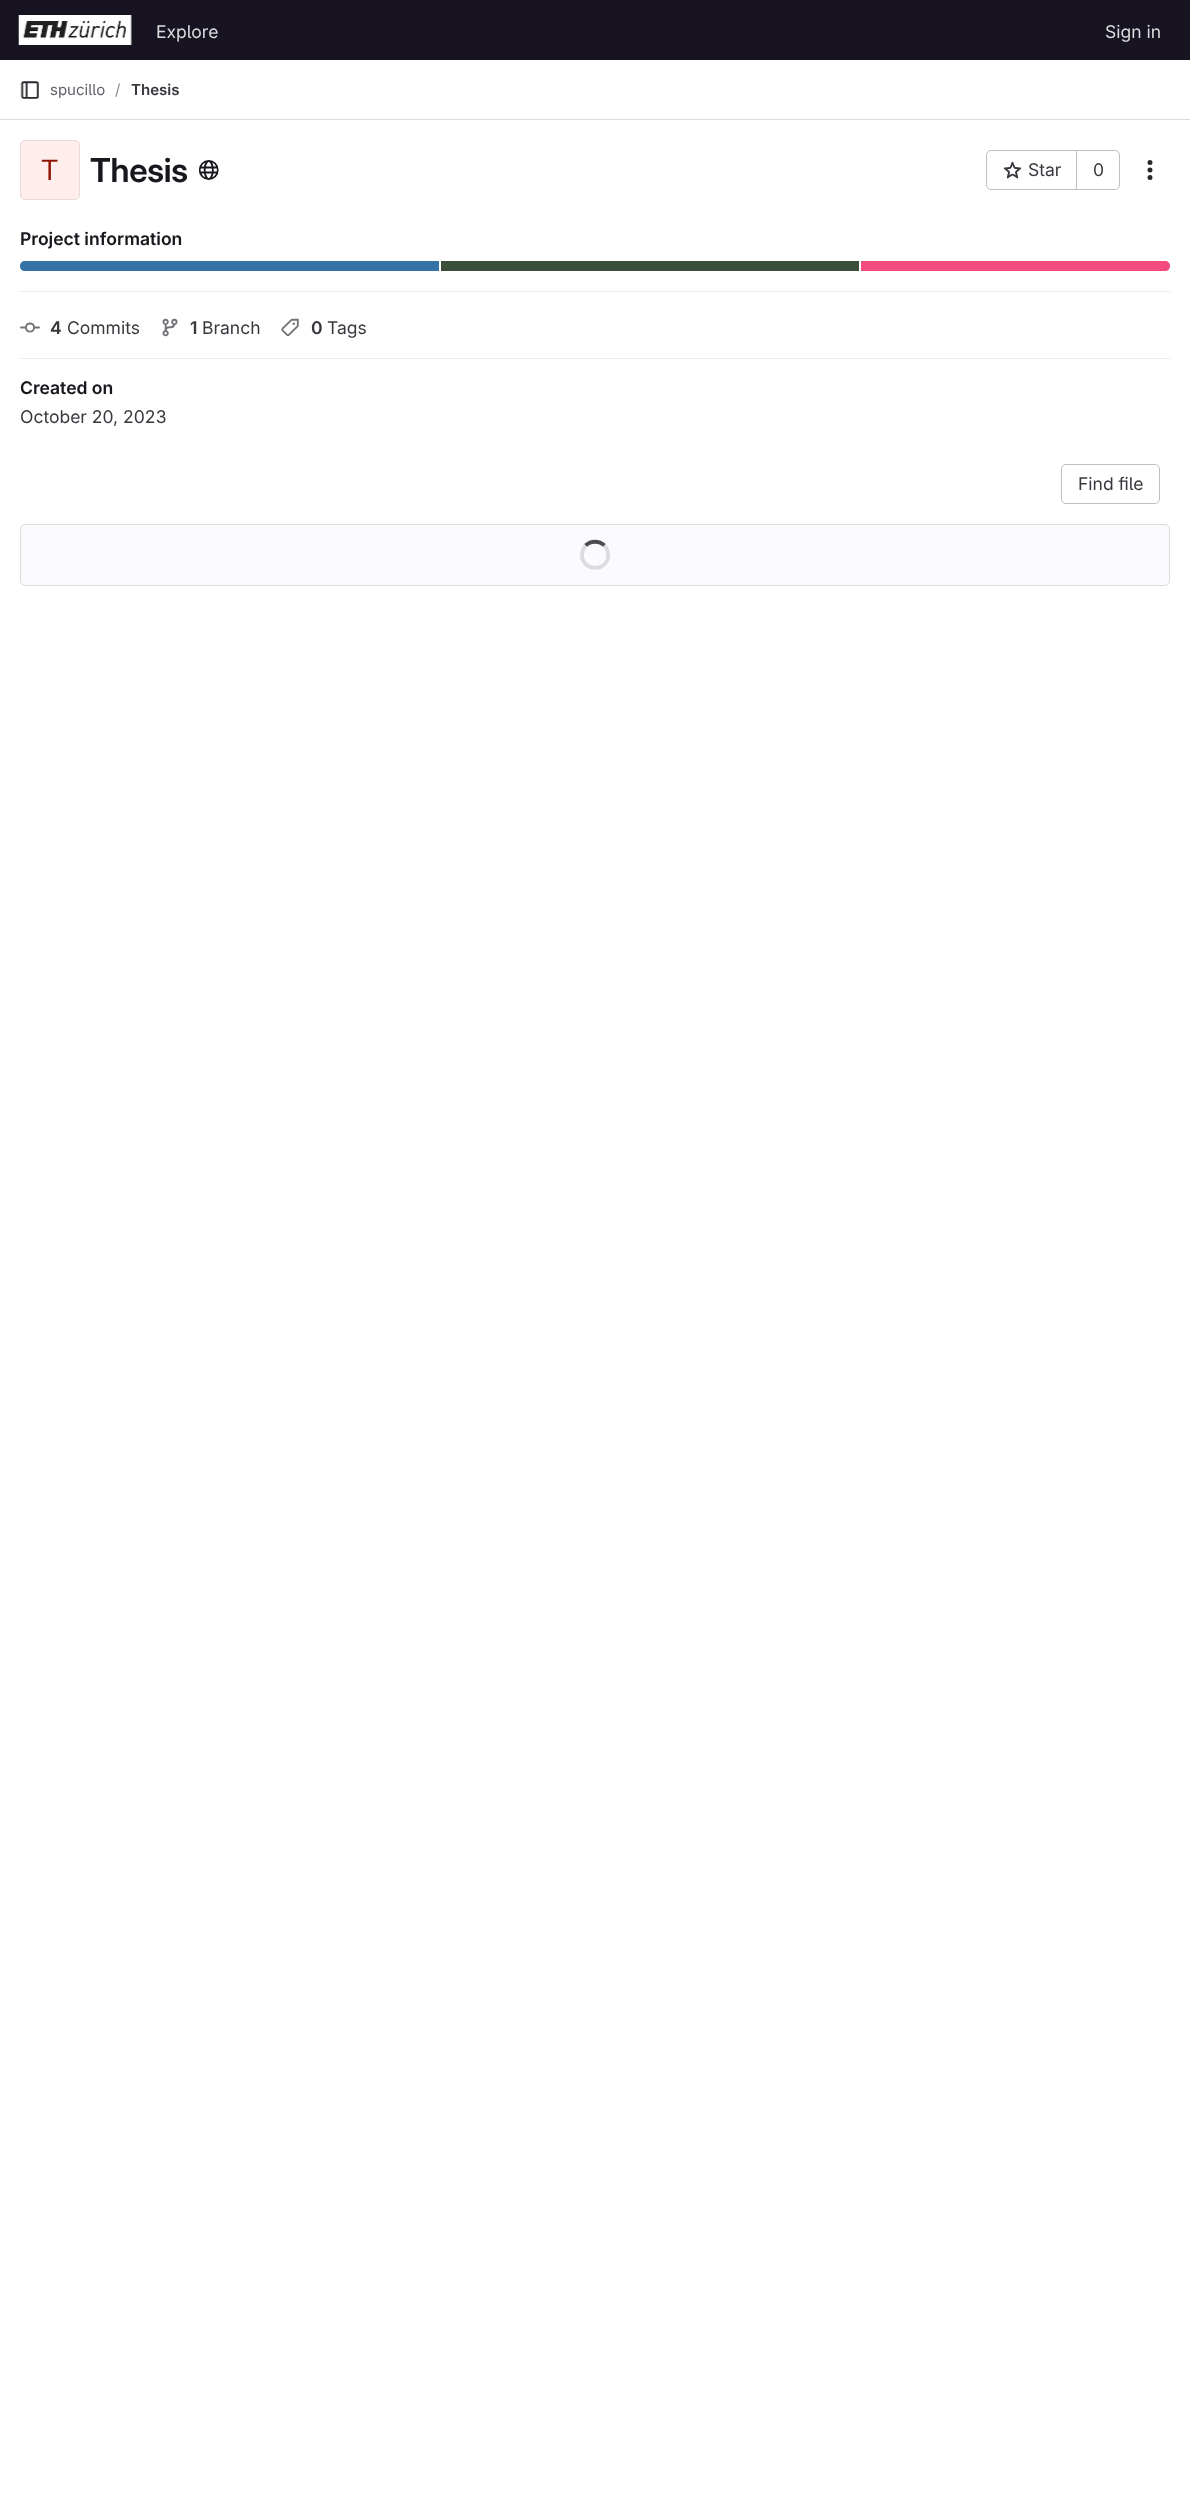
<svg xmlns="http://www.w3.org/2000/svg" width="1190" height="2501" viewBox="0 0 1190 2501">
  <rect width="100%" height="100%" fill="#ffffff"/>
  <rect x="0" y="0" width="1190" height="60" fill="#171321"/>
  <image x="18" y="15" width="114" height="30" href="img1.png"/>
  <text x="156" y="38" font-family="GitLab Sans" font-size="17.5" fill="#dcdcde">Explore</text>
  <text x="1105" y="38" font-family="GitLab Sans" font-size="17.5" fill="#dcdcde">Sign in</text>
  <rect x="0" y="119" width="1190" height="1" fill="#dcdcde"/>
  <image x="20" y="81" width="19" height="18" href="img2.png"/>
  <text x="50" y="95" font-family="GitLab Sans" font-size="15" fill="#626168">spucillo</text>
  <text x="115" y="95" font-family="GitLab Sans" font-size="15" fill="#89888d">/</text>
  <text x="131" y="95" font-family="'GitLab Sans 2'" font-size="15" font-weight="600" fill="#3a383f">Thesis</text>
  <rect x="20" y="140" width="60" height="60" rx="5" fill="#feedeb"/>
  <rect x="20.5" y="140.5" width="59" height="59" rx="4.5" fill="none" stroke="#050506" stroke-opacity="0.08"/>
  <text x="41" y="180" font-family="'GitLab Sans 2'" font-size="28" fill="#8d1300">T</text>
  <text x="90" y="182" font-family="GitLab Sans" font-size="33" font-weight="600" letter-spacing="-0.25" fill="#18171d">Thesis</text>
  <image x="198" y="160" width="21" height="20" href="img3.png"/>
  <path d="M991 150.5H1077.5V189.5H991C988.5 189.5 986.5 187.5 986.5 185V155C986.5 152.5 988.5 150.5 991 150.5Z" fill="none" stroke="#bfbfc3"/>
  <image x="1003" y="161" width="19" height="18" href="img4.png"/>
  <text x="1028" y="176" font-family="GitLab Sans" font-size="17.5" fill="#3a383f">Star</text>
  <path d="M1076.5 150.5H1115C1117.5 150.5 1119.5 152.5 1119.5 155V185C1119.5 187.5 1117.5 189.5 1115 189.5H1076.5Z" fill="#ffffff" stroke="#bfbfc3"/>
  <text x="1093" y="176" font-family="GitLab Sans" font-size="17.5" fill="#3a383f">0</text>
  <image x="1147" y="160" width="6" height="20" href="img5.png"/>
  <rect x="20" y="291" width="1150" height="1" fill="#ececef"/>
  <text x="20" y="245" font-family="'GitLab Sans 2'" font-size="17.5" font-weight="600" fill="#18171d">Project information</text>
  <path d="M25 261H439V271H25C22 271 20 269 20 266C20 263 22 261 25 261Z" fill="#3572a5"/>
  <rect x="441" y="261" width="418" height="10" fill="#3a4e3a"/>
  <path d="M861 261H1165C1168 261 1170 263 1170 266C1170 269 1168 271 1165 271H861Z" fill="#f34b7d"/>
  <rect x="20" y="358" width="1150" height="1" fill="#ececef"/>
  <image x="20" y="322" width="20" height="11" href="img6.png"/>
  <text x="50" y="334" font-family="'GitLab Sans 2'" font-size="17.5" font-weight="600" fill="#3a383f">4</text>
  <text x="67" y="334" font-family="GitLab Sans" font-size="17.5" fill="#3a383f">Commits</text>
  <image x="162" y="318" width="16" height="19" href="img7.png"/>
  <text x="190" y="334" font-family="'GitLab Sans 2'" font-size="17.5" font-weight="600" fill="#3a383f">1</text>
  <text x="202" y="334" font-family="GitLab Sans" font-size="17.5" fill="#3a383f">Branch</text>
  <image x="281" y="318" width="18" height="19" href="img8.png"/>
  <text x="311" y="334" font-family="'GitLab Sans 2'" font-size="17.5" font-weight="600" fill="#3a383f">0</text>
  <text x="327" y="334" font-family="GitLab Sans" font-size="17.5" fill="#3a383f">Tags</text>
  <text x="20" y="394" font-family="'GitLab Sans 2'" font-size="17.5" font-weight="600" fill="#18171d">Created on</text>
  <text x="20" y="423" font-family="GitLab Sans" font-size="17.5" fill="#3a383f">October 20, 2023</text>
  <rect x="1061.5" y="464.5" width="98" height="39" rx="4.5" fill="none" stroke="#bfbfc3"/>
  <text x="1078" y="490" font-family="GitLab Sans" font-size="17.5" fill="#3a383f">Find file</text>
  <rect x="20.5" y="524.5" width="1149" height="61" rx="4.5" fill="#fbfafd" stroke="#dcdcde"/>
  <path d="M585.5 545.5C591 540.5 599 540.5 604.5 545.5" fill="none" stroke="#4c4b51" stroke-width="3.8"/>
  <path d="M604.5 545.5C607.5 549 608.5 553.5 608 557.5C605 573 582 570.5 582 555C582 551.5 583.5 548 585.5 545.5" fill="none" stroke="#dcdcde" stroke-width="3.8"/>
</svg>
